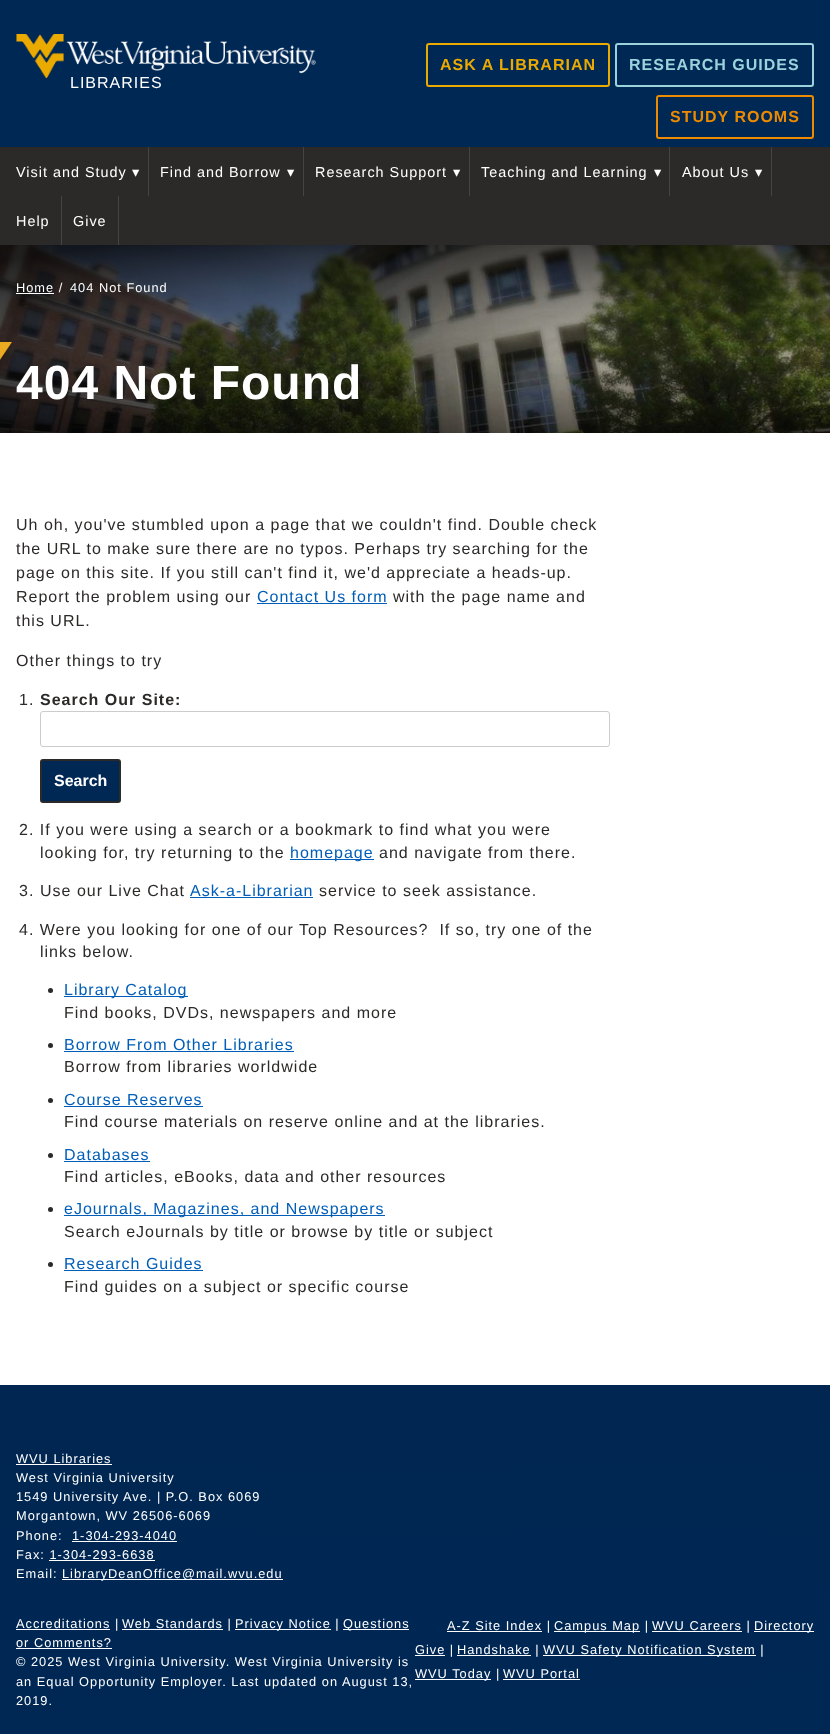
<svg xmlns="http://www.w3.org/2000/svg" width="830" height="1734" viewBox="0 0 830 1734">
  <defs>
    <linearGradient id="g1" gradientUnits="userSpaceOnUse" x1="415" y1="1385" x2="415" y2="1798"><stop offset="0" stop-color="#002651"/><stop offset="1" stop-color="#002855"/></linearGradient>
  </defs>
  <rect width="100%" height="100%" fill="#ffffff"/>
  <rect x="0" y="0" width="830" height="147" fill="#002855"/>
  <image x="16" y="34" width="300" height="44" href="img1.png"/>
  <text x="70" y="88" font-family="Liberation Sans" font-size="16" letter-spacing="1" fill="#ffffff">LIBRARIES</text>
  <rect x="427" y="44" width="182" height="42" rx="2" fill="none" stroke="#eaaa00" stroke-width="2"/>
  <text x="440" y="70" font-family="Liberation Sans" font-size="16" font-weight="bold" letter-spacing="1" fill="#eaaa00">ASK A LIBRARIAN</text>
  <rect x="616" y="44" width="197" height="42" rx="2" fill="none" stroke="#9bd3dd" stroke-width="2"/>
  <text x="629" y="70" font-family="Liberation Sans" font-size="16" font-weight="bold" letter-spacing="1" fill="#9bd3dd">RESEARCH GUIDES</text>
  <rect x="657" y="96" width="156" height="42" rx="2" fill="none" stroke="#ed8b00" stroke-width="2"/>
  <text x="670" y="122" font-family="Liberation Sans" font-size="16" font-weight="bold" letter-spacing="1" fill="#ed8b00">STUDY ROOMS</text>
  <rect x="0" y="147" width="830" height="98" fill="#2c2a29"/>
  <rect x="148" y="147" width="1" height="49" fill="#444444"/>
  <text x="16" y="177" font-family="Liberation Sans" font-size="14.4" letter-spacing="1" fill="#ffffff">Visit and Study</text>
  <text x="132" y="177" font-family="DejaVu Sans" font-size="14.4" letter-spacing="1" fill="#ffffff">▾</text>
  <rect x="303" y="147" width="1" height="49" fill="#444444"/>
  <text x="160" y="177" font-family="Liberation Sans" font-size="14.4" letter-spacing="1" fill="#ffffff">Find and Borrow</text>
  <text x="287" y="177" font-family="DejaVu Sans" font-size="14.4" letter-spacing="1" fill="#ffffff">▾</text>
  <rect x="469" y="147" width="1" height="49" fill="#444444"/>
  <text x="315" y="177" font-family="Liberation Sans" font-size="14.4" letter-spacing="1" fill="#ffffff">Research Support</text>
  <text x="453" y="177" font-family="DejaVu Sans" font-size="14.4" letter-spacing="1" fill="#ffffff">▾</text>
  <rect x="669" y="147" width="1" height="49" fill="#444444"/>
  <text x="481" y="177" font-family="Liberation Sans" font-size="14.4" letter-spacing="1" fill="#ffffff">Teaching and Learning</text>
  <text x="654" y="177" font-family="DejaVu Sans" font-size="14.4" letter-spacing="1" fill="#ffffff">▾</text>
  <rect x="771" y="147" width="1" height="49" fill="#444444"/>
  <text x="682" y="177" font-family="Liberation Sans" font-size="14.4" letter-spacing="1" fill="#ffffff">About Us</text>
  <text x="755" y="177" font-family="DejaVu Sans" font-size="14.4" letter-spacing="1" fill="#ffffff">▾</text>
  <rect x="61" y="196" width="1" height="49" fill="#444444"/>
  <text x="16" y="226" font-family="Liberation Sans" font-size="14.4" letter-spacing="1" fill="#ffffff">Help</text>
  <rect x="118" y="196" width="1" height="49" fill="#444444"/>
  <text x="73" y="226" font-family="Liberation Sans" font-size="14.4" letter-spacing="1" fill="#ffffff">Give</text>
  <image x="0" y="245" width="830" height="188" href="img2.png"/>
  <text x="16" y="292" font-family="Liberation Sans" font-size="12.8" letter-spacing="1" fill="#ffffff">Home /</text>
  <rect x="16" y="293" width="38" height="1" fill="#ffffff"/>
  <text x="70" y="292" font-family="Liberation Sans" font-size="12.8" letter-spacing="1" fill="#ffffff">404 Not Found</text>
  <path d="M-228 550L-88 342H12L-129 550Z" fill="#eaab21"/>
  <text x="16" y="399" font-family="Liberation Sans" font-size="48" font-weight="bold" letter-spacing="1" fill="#ffffff">404 Not Found</text>
  <text x="16" y="530" font-family="Liberation Sans" font-size="16" letter-spacing="1" fill="#2c2a29">Uh oh, you've stumbled upon a page that we couldn't find. Double check</text>
  <text x="16" y="554" font-family="Liberation Sans" font-size="16" letter-spacing="1" fill="#2c2a29">the URL to make sure there are no typos. Perhaps try searching for the</text>
  <text x="16" y="578" font-family="Liberation Sans" font-size="16" letter-spacing="1" fill="#2c2a29">page on this site. If you still can't find it, we'd appreciate a heads-up.</text>
  <text x="16" y="602" font-family="Liberation Sans" font-size="16" letter-spacing="1" fill="#2c2a29">Report the problem using our</text>
  <text x="257" y="602" font-family="Liberation Sans" font-size="16" letter-spacing="1" fill="#005eb8">Contact Us form</text>
  <rect x="257" y="603" width="130" height="1" fill="#005eb8"/>
  <text x="393" y="602" font-family="Liberation Sans" font-size="16" letter-spacing="1" fill="#2c2a29">with the page name and</text>
  <text x="16" y="626" font-family="Liberation Sans" font-size="16" letter-spacing="1" fill="#2c2a29">this URL.</text>
  <text x="16" y="666" font-family="Liberation Sans" font-size="16" letter-spacing="1" fill="#2c2a29">Other things to try</text>
  <text x="19" y="705" font-family="Liberation Sans" font-size="16" letter-spacing="1" fill="#2c2a29">1.</text>
  <text x="40" y="705" font-family="Liberation Sans" font-size="16" font-weight="bold" letter-spacing="1" fill="#2c2a29">Search Our Site:</text>
  <rect x="40.5" y="711.5" width="569" height="35" rx="2.5" fill="none" stroke="#cccccc"/>
  <rect x="41" y="760" width="79" height="42" rx="2" fill="#002855" stroke="#2c2a29" stroke-width="2"/>
  <text x="54" y="786" font-family="Liberation Sans" font-size="16" font-weight="bold" fill="#ffffff">Search</text>
  <text x="19" y="835" font-family="Liberation Sans" font-size="16" letter-spacing="1" fill="#2c2a29">2. If you were using a search or a bookmark to find what you were</text>
  <text x="40" y="858" font-family="Liberation Sans" font-size="16" letter-spacing="1" fill="#2c2a29">looking for, try returning to the</text>
  <rect x="290" y="859" width="84" height="1" fill="#005eb8"/>
  <text x="290" y="858" font-family="Liberation Sans" font-size="16" letter-spacing="1" fill="#005eb8">homepage</text>
  <text x="379" y="858" font-family="Liberation Sans" font-size="16" letter-spacing="1" fill="#2c2a29">and navigate from there.</text>
  <text x="19" y="896" font-family="Liberation Sans" font-size="16" letter-spacing="1" fill="#2c2a29">3.</text>
  <text x="40" y="896" font-family="Liberation Sans" font-size="16" letter-spacing="1" fill="#2c2a29">Use our Live Chat</text>
  <text x="190" y="896" font-family="Liberation Sans" font-size="16" letter-spacing="1" fill="#005eb8">Ask-a-Librarian</text>
  <rect x="190" y="897" width="123" height="1" fill="#005eb8"/>
  <text x="319" y="896" font-family="Liberation Sans" font-size="16" letter-spacing="1" fill="#2c2a29">service to seek assistance.</text>
  <text x="19" y="935" font-family="Liberation Sans" font-size="16" letter-spacing="1" fill="#2c2a29" xml:space="preserve">4. Were you looking for one of our Top Resources?  If so, try one of the</text>
  <text x="40" y="957" font-family="Liberation Sans" font-size="16" letter-spacing="1" fill="#2c2a29">links below.</text>
  <circle cx="50.5" cy="990.5" r="2.5" fill="#2c2a29"/>
  <rect x="64" y="996" width="124" height="1" fill="#005eb8"/>
  <text x="64" y="995" font-family="Liberation Sans" font-size="16" letter-spacing="1" fill="#005eb8">Library Catalog</text>
  <text x="64" y="1018" font-family="Liberation Sans" font-size="16" letter-spacing="1" fill="#2c2a29">Find books, DVDs, newspapers and more</text>
  <circle cx="50.5" cy="1045.5" r="2.5" fill="#2c2a29"/>
  <text x="64" y="1050" font-family="Liberation Sans" font-size="16" letter-spacing="1" fill="#005eb8">Borrow From Other Libraries</text>
  <rect x="64" y="1051" width="230" height="1" fill="#005eb8"/>
  <text x="64" y="1072" font-family="Liberation Sans" font-size="16" letter-spacing="1" fill="#2c2a29">Borrow from libraries worldwide</text>
  <circle cx="50.5" cy="1100.5" r="2.5" fill="#2c2a29"/>
  <text x="64" y="1105" font-family="Liberation Sans" font-size="16" letter-spacing="1" fill="#005eb8">Course Reserves</text>
  <rect x="64" y="1106" width="139" height="1" fill="#005eb8"/>
  <text x="64" y="1127" font-family="Liberation Sans" font-size="16" letter-spacing="1" fill="#2c2a29">Find course materials on reserve online and at the libraries.</text>
  <circle cx="50.5" cy="1155.5" r="2.5" fill="#2c2a29"/>
  <text x="64" y="1160" font-family="Liberation Sans" font-size="16" letter-spacing="1" fill="#005eb8">Databases</text>
  <rect x="64" y="1161" width="86" height="1" fill="#005eb8"/>
  <text x="64" y="1182" font-family="Liberation Sans" font-size="16" letter-spacing="1" fill="#2c2a29">Find articles, eBooks, data and other resources</text>
  <circle cx="50.5" cy="1209.5" r="2.5" fill="#2c2a29"/>
  <rect x="64" y="1215" width="321" height="1" fill="#005eb8"/>
  <text x="64" y="1214" font-family="Liberation Sans" font-size="16" letter-spacing="1" fill="#005eb8">eJournals, Magazines, and Newspapers</text>
  <text x="64" y="1237" font-family="Liberation Sans" font-size="16" letter-spacing="1" fill="#2c2a29">Search eJournals by title or browse by title or subject</text>
  <circle cx="50.5" cy="1264.5" r="2.5" fill="#2c2a29"/>
  <text x="64" y="1269" font-family="Liberation Sans" font-size="16" letter-spacing="1" fill="#005eb8">Research Guides</text>
  <rect x="64" y="1270" width="139" height="1" fill="#005eb8"/>
  <text x="64" y="1292" font-family="Liberation Sans" font-size="16" letter-spacing="1" fill="#2c2a29">Find guides on a subject or specific course</text>
  <rect x="0" y="1385" width="830" height="349" fill="url(#g1)"/>
  <text x="16" y="1463" font-family="Liberation Sans" font-size="12.8" letter-spacing="1" fill="#ffffff">WVU Libraries</text>
  <rect x="16" y="1464" width="96" height="1" fill="#ffffff"/>
  <text x="16" y="1482" font-family="Liberation Sans" font-size="12.8" letter-spacing="1" fill="#ffffff">West Virginia University</text>
  <text x="16" y="1501" font-family="Liberation Sans" font-size="12.8" letter-spacing="1" fill="#ffffff">1549 University Ave. | P.O. Box 6069</text>
  <text x="16" y="1520" font-family="Liberation Sans" font-size="12.8" letter-spacing="1" fill="#ffffff">Morgantown, WV 26506-6069</text>
  <text x="16" y="1540" font-family="Liberation Sans" font-size="12.8" letter-spacing="1" fill="#ffffff">Phone:</text>
  <text x="72" y="1540" font-family="Liberation Sans" font-size="12.8" letter-spacing="1" fill="#ffffff">1-304-293-4040</text>
  <rect x="72" y="1541" width="105" height="1" fill="#ffffff"/>
  <text x="16" y="1559" font-family="Liberation Sans" font-size="12.8" letter-spacing="1" fill="#ffffff">Fax: 1-304-293-6638</text>
  <rect x="49" y="1560" width="106" height="1" fill="#ffffff"/>
  <text x="16" y="1578" font-family="Liberation Sans" font-size="12.8" letter-spacing="1" fill="#ffffff">Email:</text>
  <rect x="62" y="1579" width="221" height="1" fill="#ffffff"/>
  <text x="62" y="1578" font-family="Liberation Sans" font-size="12.8" letter-spacing="1" fill="#ffffff">LibraryDeanOffice@mail.wvu.edu</text>
  <rect x="16" y="1629" width="94" height="1" fill="#ffffff"/>
  <text x="16" y="1628" font-family="Liberation Sans" font-size="12.8" letter-spacing="1" fill="#ffffff">Accreditations |</text>
  <rect x="122" y="1629" width="101" height="1" fill="#ffffff"/>
  <text x="122" y="1628" font-family="Liberation Sans" font-size="12.8" letter-spacing="1" fill="#ffffff">Web Standards |</text>
  <rect x="235" y="1629" width="96" height="1" fill="#ffffff"/>
  <text x="235" y="1628" font-family="Liberation Sans" font-size="12.8" letter-spacing="1" fill="#ffffff">Privacy Notice |</text>
  <rect x="343" y="1629" width="66" height="1" fill="#ffffff"/>
  <text x="343" y="1628" font-family="Liberation Sans" font-size="12.8" letter-spacing="1" fill="#ffffff">Questions</text>
  <text x="16" y="1647" font-family="Liberation Sans" font-size="12.8" letter-spacing="1" fill="#ffffff">or Comments?</text>
  <rect x="16" y="1648" width="96" height="1" fill="#ffffff"/>
  <text x="16" y="1666" font-family="Liberation Sans" font-size="12.8" letter-spacing="1" fill="#ffffff">© 2025 West Virginia University. West Virginia University is</text>
  <text x="16" y="1686" font-family="Liberation Sans" font-size="12.8" letter-spacing="1" fill="#ffffff">an Equal Opportunity Employer. Last updated on August 13,</text>
  <text x="16" y="1705" font-family="Liberation Sans" font-size="12.8" letter-spacing="1" fill="#ffffff">2019.</text>
  <rect x="447" y="1631" width="95" height="1" fill="#ffffff"/>
  <text x="447" y="1630" font-family="Liberation Sans" font-size="12.8" letter-spacing="1" fill="#ffffff">A-Z Site Index |</text>
  <rect x="554" y="1631" width="86" height="1" fill="#ffffff"/>
  <text x="554" y="1630" font-family="Liberation Sans" font-size="12.8" letter-spacing="1" fill="#ffffff">Campus Map |</text>
  <rect x="652" y="1631" width="90" height="1" fill="#ffffff"/>
  <text x="652" y="1630" font-family="Liberation Sans" font-size="12.8" letter-spacing="1" fill="#ffffff">WVU Careers |</text>
  <rect x="754" y="1631" width="60" height="1" fill="#ffffff"/>
  <text x="754" y="1630" font-family="Liberation Sans" font-size="12.8" letter-spacing="1" fill="#ffffff">Directory</text>
  <rect x="415" y="1655" width="30" height="1" fill="#ffffff"/>
  <text x="415" y="1654" font-family="Liberation Sans" font-size="12.8" letter-spacing="1" fill="#ffffff">Give |</text>
  <rect x="457" y="1655" width="74" height="1" fill="#ffffff"/>
  <text x="457" y="1654" font-family="Liberation Sans" font-size="12.8" letter-spacing="1" fill="#ffffff">Handshake |</text>
  <rect x="543" y="1655" width="213" height="1" fill="#ffffff"/>
  <text x="543" y="1654" font-family="Liberation Sans" font-size="12.8" letter-spacing="1" fill="#ffffff">WVU Safety Notification System |</text>
  <rect x="415" y="1679" width="76" height="1" fill="#ffffff"/>
  <text x="415" y="1678" font-family="Liberation Sans" font-size="12.8" letter-spacing="1" fill="#ffffff">WVU Today |</text>
  <text x="503" y="1678" font-family="Liberation Sans" font-size="12.8" letter-spacing="1" fill="#ffffff">WVU Portal</text>
  <rect x="503" y="1679" width="77" height="1" fill="#ffffff"/>
</svg>
